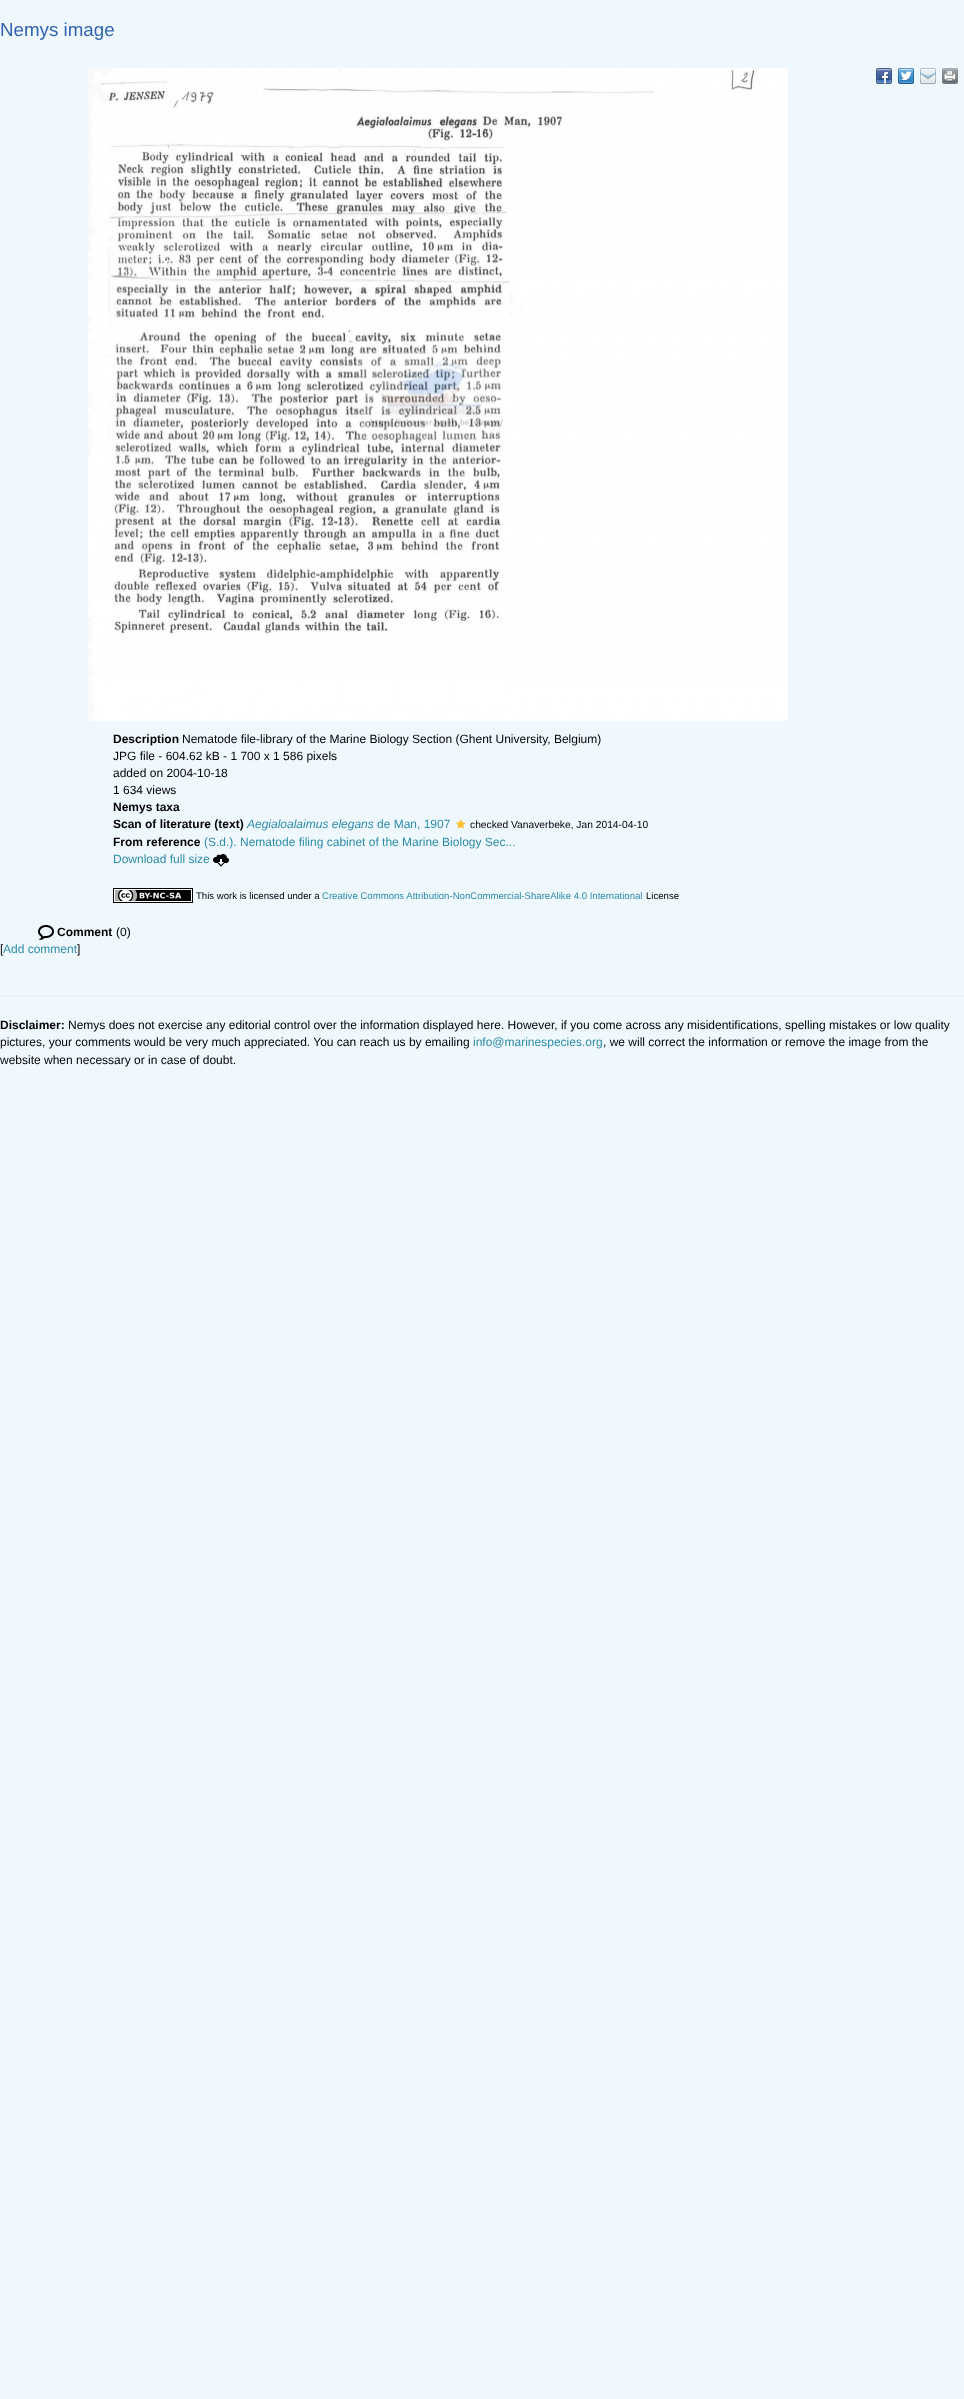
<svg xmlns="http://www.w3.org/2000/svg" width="964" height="2399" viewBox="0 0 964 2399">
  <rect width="100%" height="100%" fill="#f0f8ff"/>
  <text x="0" y="36" font-family="Liberation Sans" font-size="18.75" fill="#3264ae">Nemys image</text>
  <image x="876" y="68" width="16" height="16" href="img1.png"/>
  <image x="898" y="68" width="16" height="16" href="img2.png"/>
  <image x="920" y="68" width="16" height="16" href="img3.png"/>
  <image x="942" y="68" width="16" height="16" href="img4.png"/>
  <image x="88" y="68" width="700" height="653" href="img5.png"/>
  <text x="113" y="743" font-family="Liberation Sans" font-size="12" font-weight="bold" fill="#000000">Description</text>
  <text x="182" y="743" font-family="Liberation Sans" font-size="12" fill="#000000">Nematode file-library of the Marine Biology Section (Ghent University, Belgium)</text>
  <text x="113" y="760" font-family="Liberation Sans" font-size="12" fill="#000000">JPG file - 604.62 kB - 1 700 x 1 586 pixels</text>
  <text x="113" y="777" font-family="Liberation Sans" font-size="12" fill="#000000">added on 2004-10-18</text>
  <text x="113" y="794" font-family="Liberation Sans" font-size="12" fill="#000000">1 634 views</text>
  <text x="113" y="811" font-family="Liberation Sans" font-size="12" font-weight="bold" fill="#000000">Nemys taxa</text>
  <text x="113" y="828" font-family="Liberation Sans" font-size="12" font-weight="bold" fill="#000000">Scan of literature (text)</text>
  <text x="247" y="828" font-family="Liberation Sans" font-size="12" font-style="italic" fill="#2d8ba8">Aegialoalaimus elegans</text>
  <text x="377" y="828" font-family="Liberation Sans" font-size="12" fill="#2d8ba8">de Man, 1907</text>
  <image x="456" y="819" width="10" height="10" href="img6.png"/>
  <text x="470" y="828" font-family="Liberation Sans" font-size="10.25" fill="#000000">checked Vanaverbeke, Jan 2014-04-10</text>
  <text x="113" y="846" font-family="Liberation Sans" font-size="12" font-weight="bold" fill="#000000">From reference</text>
  <text x="204" y="846" font-family="Liberation Sans" font-size="12" fill="#2d8ba8">(S.d.). Nematode filing cabinet of the Marine Biology Sec...</text>
  <text x="113" y="863" font-family="Liberation Sans" font-size="12" fill="#2d8ba8">Download full size</text>
  <image x="213" y="854" width="16" height="13" href="img7.png"/>
  <image x="113" y="888" width="80" height="15" href="img8.png"/>
  <text x="196" y="899" font-family="Liberation Sans" font-size="9.6" fill="#000000">This work is licensed under a</text>
  <text x="322" y="899" font-family="Liberation Sans" font-size="9.6" fill="#2d8ba8">Creative Commons Attribution-NonCommercial-ShareAlike 4.0 International</text>
  <text x="646" y="899" font-family="Liberation Sans" font-size="9.6" fill="#000000">License</text>
  <image x="38" y="925" width="16" height="15" href="img9.png"/>
  <text x="57" y="936" font-family="Liberation Sans" font-size="12" font-weight="bold" fill="#000000">Comment</text>
  <text x="116" y="936" font-family="Liberation Sans" font-size="12" fill="#000000">(0)</text>
  <text x="0" y="953" font-family="Liberation Sans" font-size="12" fill="#000000">[</text>
  <text x="3" y="953" font-family="Liberation Sans" font-size="12" fill="#2d8ba8">Add comment</text>
  <text x="77" y="953" font-family="Liberation Sans" font-size="12" fill="#000000">]</text>
  <rect x="0" y="995" width="964" height="1" fill="#eeeeee"/>
  <text x="0" y="1029" font-family="Liberation Sans" font-size="12" font-weight="bold" fill="#000000">Disclaimer:</text>
  <text x="68" y="1029" font-family="Liberation Sans" font-size="12" fill="#000000">Nemys does not exercise any editorial control over the information displayed here. However, if you come across any misidentifications, spelling mistakes or low quality</text>
  <text x="0" y="1046" font-family="Liberation Sans" font-size="12" fill="#000000">pictures, your comments would be very much appreciated. You can reach us by emailing</text>
  <text x="473" y="1046" font-family="Liberation Sans" font-size="12" fill="#2d8ba8">info@marinespecies.org</text>
  <text x="603" y="1046" font-family="Liberation Sans" font-size="12" fill="#000000">, we will correct the information or remove the image from the</text>
  <text x="0" y="1064" font-family="Liberation Sans" font-size="12" fill="#000000">website when necessary or in case of doubt.</text>
</svg>
